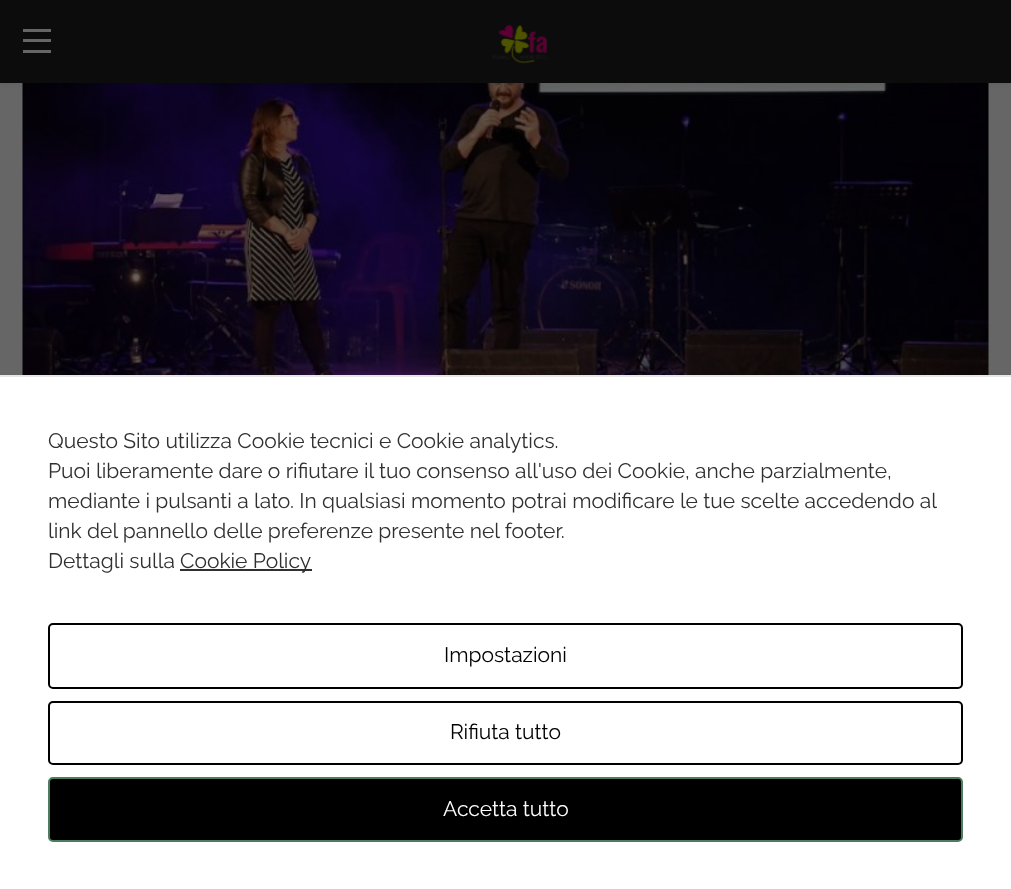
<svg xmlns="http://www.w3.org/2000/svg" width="1011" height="889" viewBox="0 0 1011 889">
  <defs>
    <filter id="blur1" x="-50%" y="-200%" width="200%" height="500%"><feGaussianBlur stdDeviation="3"/></filter>
  </defs>
  <rect width="100%" height="100%" fill="#666666"/>
  <image x="22" y="83" width="967" height="292" href="img2.png"/>
  <rect x="0" y="0" width="1011" height="83" fill="#000000" fill-opacity="0.1" filter="url(#blur1)"/>
  <rect x="0" y="0" width="1011" height="83" fill="#0c0c0c"/>
  <rect x="23" y="29" width="28" height="3" fill="#666666"/>
  <rect x="23" y="39" width="28" height="3" fill="#666666"/>
  <rect x="23" y="50" width="28" height="3" fill="#666666"/>
  <image x="492" y="24" width="56" height="40" href="img1.png"/>
  <rect x="0" y="377" width="1011" height="512" fill="#ffffff"/>
  <rect x="0" y="375" width="1011" height="2" fill="#e6e6e6"/>
  <text x="48" y="448" font-family="Raleway" font-size="21" fill="#303030">Questo Sito utilizza Cookie tecnici e Cookie analytics.</text>
  <text x="48" y="478" font-family="Raleway" font-size="21" fill="#303030">Puoi liberamente dare o rifiutare il tuo consenso all'uso dei Cookie, anche parzialmente,</text>
  <text x="48" y="508" font-family="Raleway" font-size="21" fill="#303030">mediante i pulsanti a lato. In qualsiasi momento potrai modificare le tue scelte accedendo al</text>
  <text x="48" y="538" font-family="Raleway" font-size="21" fill="#303030">link del pannello delle preferenze presente nel footer.</text>
  <text x="48" y="568" font-family="Raleway" font-size="21" fill="#303030">Dettagli sulla</text>
  <rect x="180" y="569" width="132" height="2" fill="#303030"/>
  <text x="180" y="568" font-family="Raleway" font-size="21" fill="#303030">Cookie Policy</text>
  <rect x="49" y="624" width="913" height="64" rx="4" fill="none" stroke="#000000" stroke-width="2"/>
  <text x="444" y="662" font-family="Raleway" font-size="21" fill="#000000">Impostazioni</text>
  <rect x="49" y="702" width="913" height="62" rx="4" fill="none" stroke="#000000" stroke-width="2"/>
  <text x="450" y="739" font-family="Raleway" font-size="21" fill="#000000">Rifiuta tutto</text>
  <rect x="49" y="778" width="913" height="63" rx="4" fill="#000000" stroke="#4b7d5e" stroke-width="2"/>
  <text x="443" y="816" font-family="Raleway" font-size="21" fill="#ffffff">Accetta tutto</text>
</svg>
